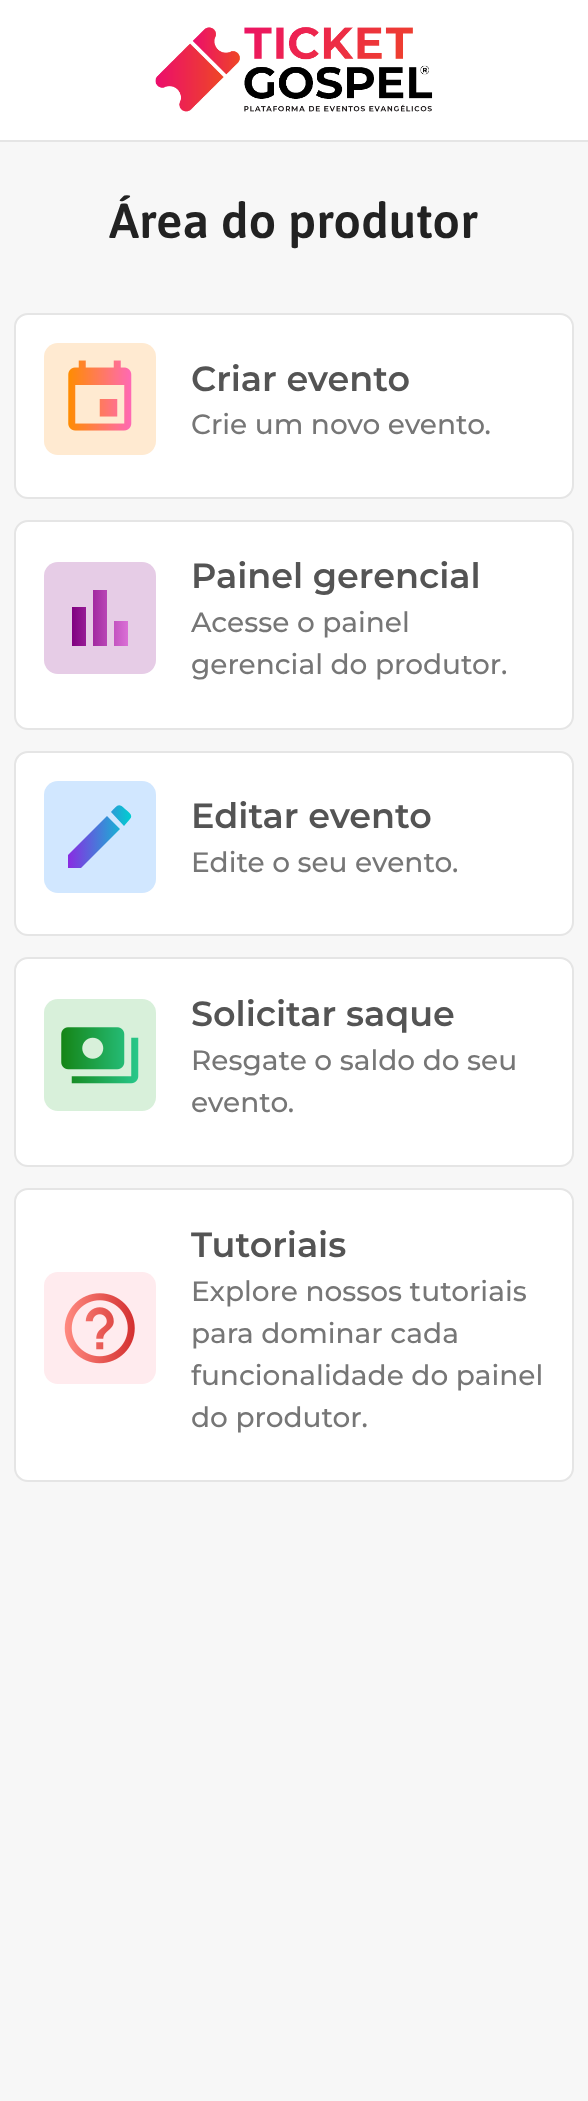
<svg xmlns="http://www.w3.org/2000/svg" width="588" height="2101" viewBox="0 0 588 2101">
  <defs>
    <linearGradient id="g1" gradientUnits="userSpaceOnUse" x1="72" y1="590" x2="128" y2="590"><stop offset="0" stop-color="#800080"/><stop offset="1" stop-color="#da70d6"/></linearGradient>
    <linearGradient id="g2" gradientUnits="userSpaceOnUse" x1="68" y1="805" x2="131" y2="805"><stop offset="0" stop-color="#8a2be2"/><stop offset="1" stop-color="#00ced1"/></linearGradient>
  </defs>
  <rect width="100%" height="100%" fill="#f7f7f7"/>
  <rect x="0" y="0" width="588" height="140" fill="#ffffff"/>
  <rect x="0" y="140" width="588" height="2" fill="#e5e5e5"/>
  <image x="155" y="27" width="278" height="85" href="img1.png"/>
  <text x="109" y="238" font-family="Asap" font-size="49" font-weight="600" fill="#222222">Área do produtor</text>
  <rect x="15" y="314" width="558" height="184" rx="13" fill="#ffffff" stroke="#e5e5e5" stroke-width="2"/>
  <rect x="44" y="343" width="112" height="112" rx="14" fill="#ffead1"/>
  <image x="68" y="360" width="64" height="71" href="img2.png"/>
  <text x="191" y="391" font-family="Montserrat" font-size="35" font-weight="600" fill="#545454">Criar evento</text>
  <text x="191" y="434" font-family="Montserrat" font-size="28" font-weight="500" fill="#767676">Crie um novo evento.</text>
  <rect x="15" y="521" width="558" height="208" rx="13" fill="#ffffff" stroke="#e5e5e5" stroke-width="2"/>
  <rect x="44" y="562" width="112" height="112" rx="14" fill="#e6cce6"/>
  <path d="M72 607H86V646H72ZM114 621H128V646H114ZM93 590H107V646H93Z" fill="url(#g1)"/>
  <text x="191" y="588" font-family="Montserrat" font-size="35" font-weight="600" fill="#545454">Painel gerencial</text>
  <text x="191" y="632" font-family="Montserrat" font-size="28" font-weight="500" fill="#767676">Acesse o painel</text>
  <text x="191" y="674" font-family="Montserrat" font-size="28" font-weight="500" fill="#767676">gerencial do produtor.</text>
  <rect x="15" y="752" width="558" height="183" rx="13" fill="#ffffff" stroke="#e5e5e5" stroke-width="2"/>
  <rect x="44" y="781" width="112" height="112" rx="14" fill="#d1e7ff"/>
  <path d="M68 855V868H81L120 829L107 816ZM130 819C134 815 127 811 125 809C118 802 117 806 111 812L124 826Z" fill="url(#g2)"/>
  <text x="191" y="828" font-family="Montserrat" font-size="35" font-weight="600" fill="#545454">Editar evento</text>
  <text x="191" y="872" font-family="Montserrat" font-size="28" font-weight="500" fill="#767676">Edite o seu evento.</text>
  <rect x="15" y="958" width="558" height="208" rx="13" fill="#ffffff" stroke="#e5e5e5" stroke-width="2"/>
  <rect x="44" y="999" width="112" height="112" rx="14" fill="#d8f0da"/>
  <image x="61" y="1027" width="78" height="57" href="img3.png"/>
  <text x="191" y="1026" font-family="Montserrat" font-size="35" font-weight="600" fill="#545454">Solicitar saque</text>
  <text x="191" y="1070" font-family="Montserrat" font-size="28" font-weight="500" fill="#767676">Resgate o saldo do seu</text>
  <text x="191" y="1112" font-family="Montserrat" font-size="28" font-weight="500" fill="#767676">evento.</text>
  <rect x="15" y="1189" width="558" height="292" rx="13" fill="#ffffff" stroke="#e5e5e5" stroke-width="2"/>
  <rect x="44" y="1272" width="112" height="112" rx="14" fill="#ffebee"/>
  <image x="64" y="1293" width="71" height="71" href="img4.png"/>
  <text x="191" y="1257" font-family="Montserrat" font-size="35" font-weight="600" fill="#545454">Tutoriais</text>
  <text x="191" y="1301" font-family="Montserrat" font-size="28" font-weight="500" fill="#767676">Explore nossos tutoriais</text>
  <text x="191" y="1343" font-family="Montserrat" font-size="28" font-weight="500" fill="#767676">para dominar cada</text>
  <text x="191" y="1385" font-family="Montserrat" font-size="28" font-weight="500" fill="#767676">funcionalidade do painel</text>
  <text x="191" y="1427" font-family="Montserrat" font-size="28" font-weight="500" fill="#767676">do produtor.</text>
</svg>
